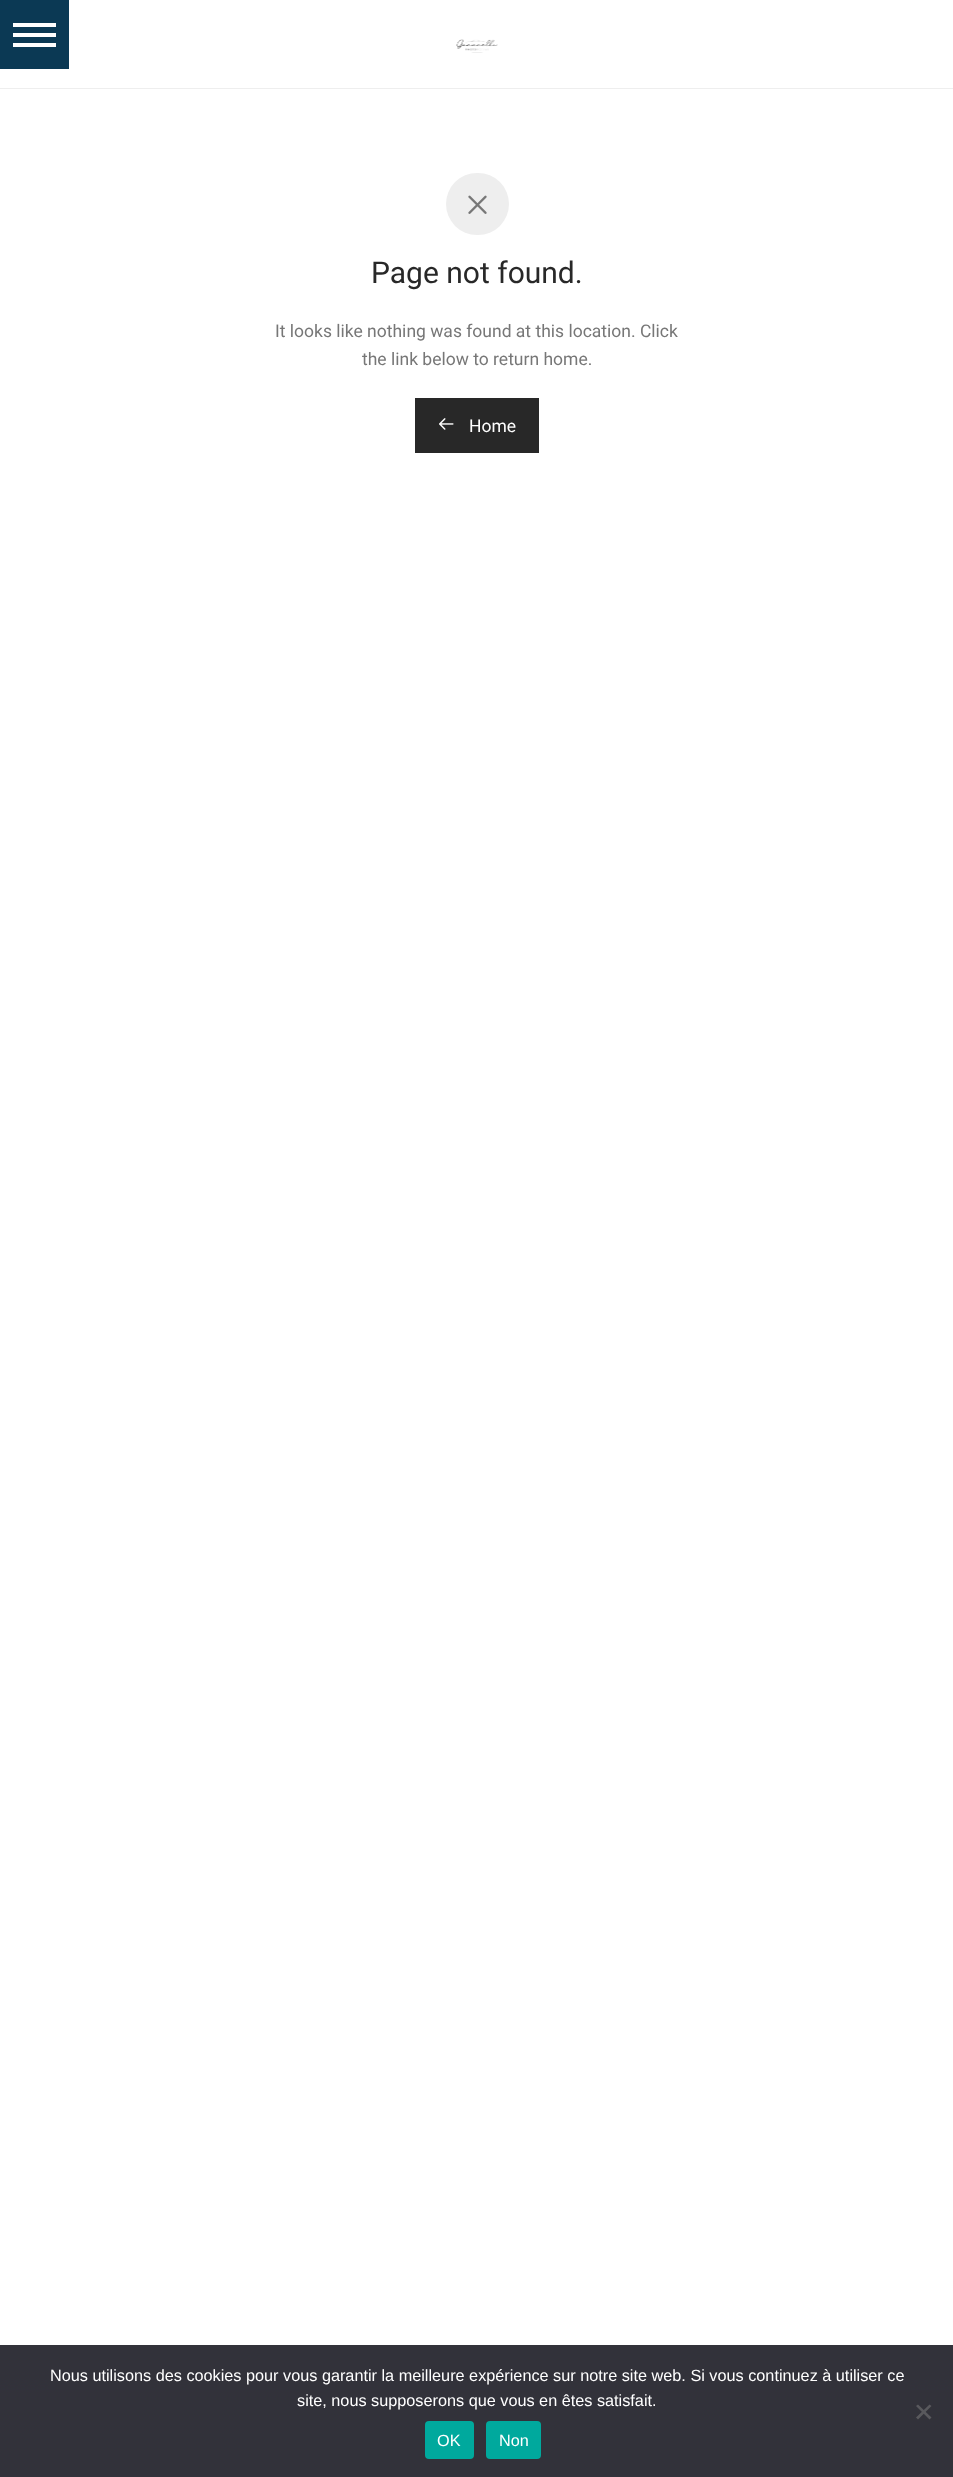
<svg xmlns="http://www.w3.org/2000/svg" width="953" height="2477" viewBox="0 0 953 2477">
  <rect width="100%" height="100%" fill="#ffffff"/>
  <rect x="0" y="0" width="69" height="69" fill="#0b3954"/>
  <rect x="13" y="23" width="43" height="4" fill="#ffffff"/>
  <rect x="13" y="33" width="43" height="4" fill="#ffffff"/>
  <rect x="13" y="43" width="43" height="4" fill="#ffffff"/>
  <rect x="0" y="88" width="953" height="1" fill="#eeeeee"/>
  <image x="456" y="39" width="42" height="14" href="img1.png"/>
  <rect x="446" y="173" width="63" height="62" rx="31" fill="#eeeeee"/>
  <image x="468" y="195" width="19" height="19" href="img2.png"/>
  <text x="371" y="283" font-family="Roboto" font-size="30" fill="#282828">Page not found.</text>
  <text x="275" y="337" font-family="Roboto" font-size="17.5" fill="#777777">It looks like nothing was found at this location. Click</text>
  <text x="362" y="365" font-family="Roboto" font-size="17.5" fill="#777777">the link below to return home.</text>
  <rect x="415" y="398" width="124" height="55" fill="#282828"/>
  <image x="439" y="418" width="15" height="12" href="img3.png"/>
  <text x="469" y="432" font-family="Roboto" font-size="17.5" fill="#ffffff">Home</text>
  <rect x="0" y="2345" width="953" height="132" fill="#32323a"/>
  <text x="50" y="2381" font-family="Liberation Sans" font-size="16.25" fill="#ffffff">Nous utilisons des cookies pour vous garantir la meilleure expérience sur notre site web. Si vous continuez à utiliser ce</text>
  <text x="297" y="2406" font-family="Liberation Sans" font-size="16.25" fill="#ffffff">site, nous supposerons que vous en êtes satisfait.</text>
  <path d="M929.5 2404.5L931.5 2406L918 2419.5L916 2417.5Z" fill="#59595d"/>
  <path d="M916 2406L918 2404.5L931.5 2417.5L929.5 2419.5Z" fill="#59595d"/>
  <rect x="425" y="2421" width="49" height="38" rx="4" fill="#00a99d"/>
  <text x="437" y="2446" font-family="Liberation Sans" font-size="16.25" fill="#ffffff">OK</text>
  <rect x="486" y="2421" width="55" height="38" rx="4" fill="#00a99d"/>
  <text x="499" y="2446" font-family="Liberation Sans" font-size="16.25" fill="#ffffff">Non</text>
</svg>
